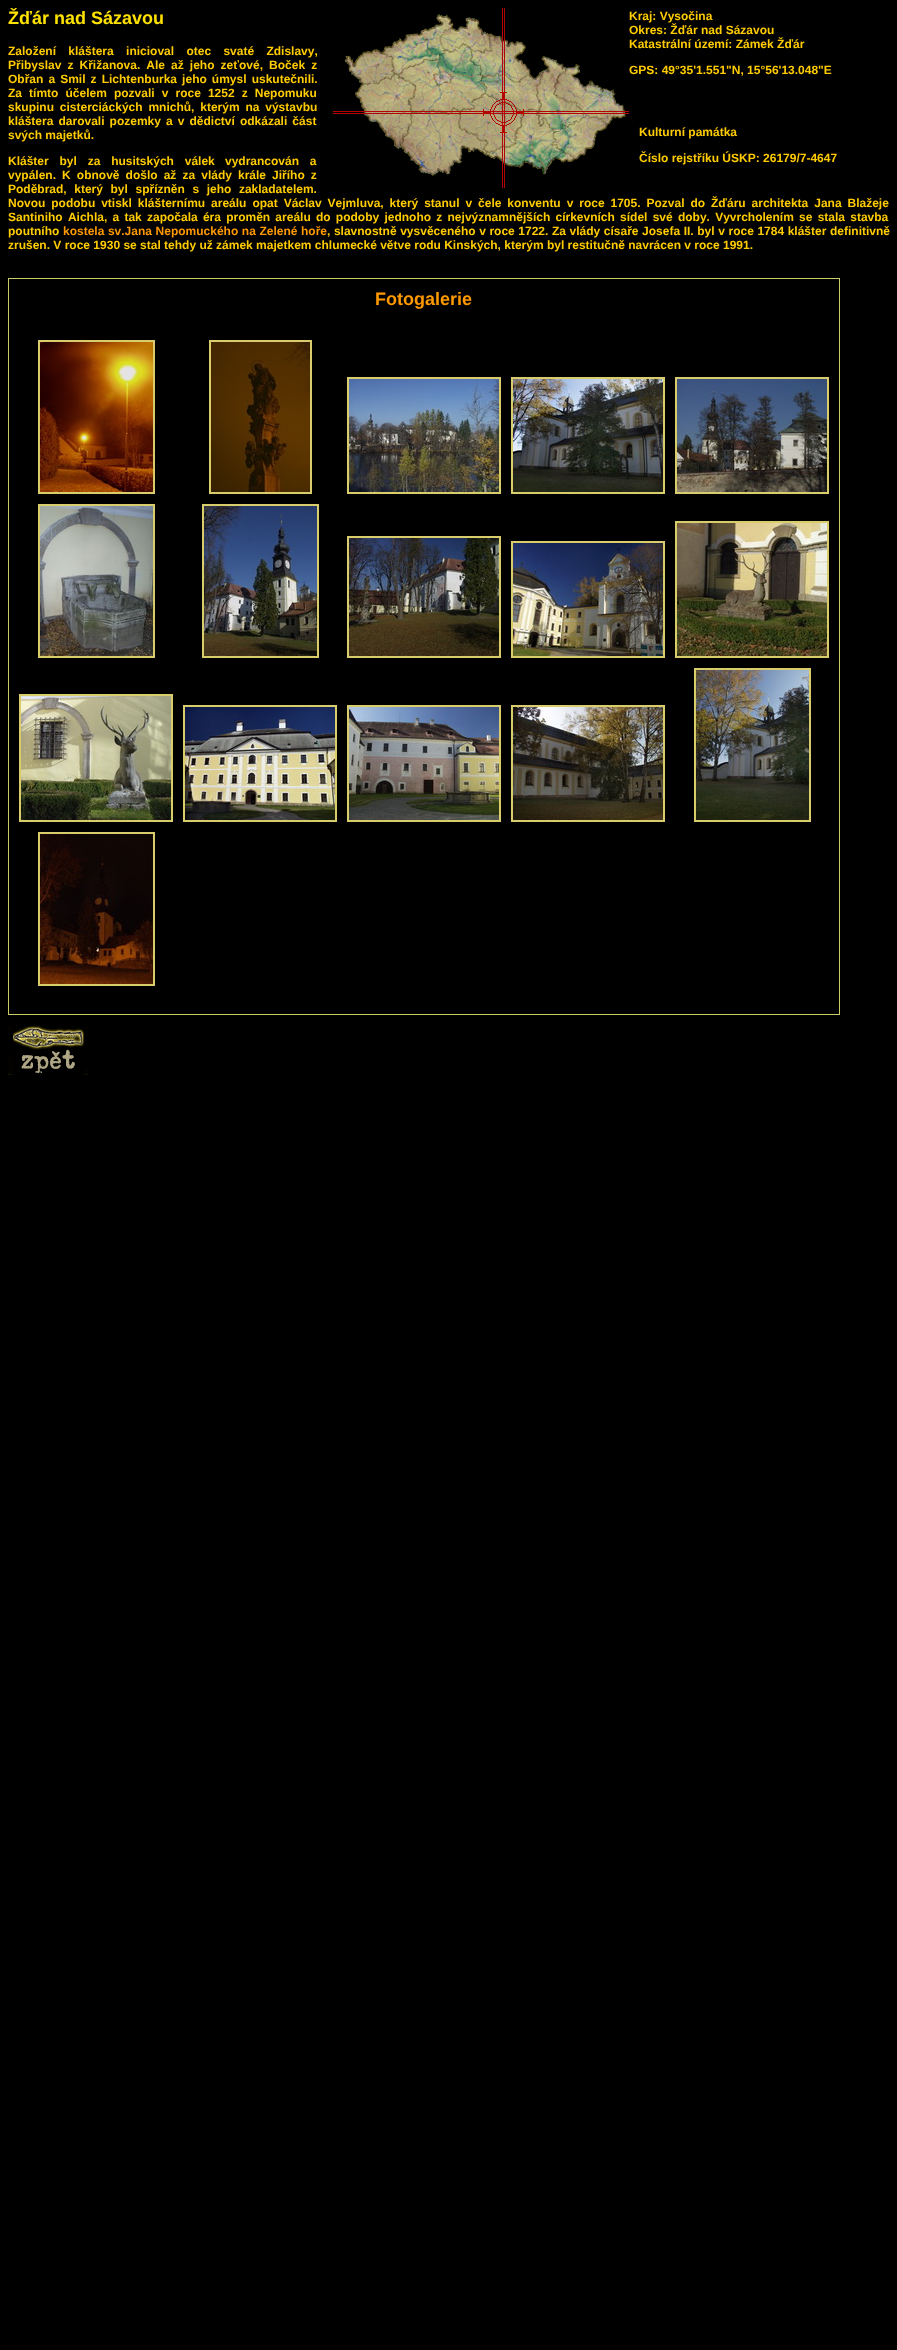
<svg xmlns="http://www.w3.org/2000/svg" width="897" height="2350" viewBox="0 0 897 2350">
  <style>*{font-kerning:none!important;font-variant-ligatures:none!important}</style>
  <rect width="100%" height="100%" fill="#000000"/>
  <text x="8" y="24" font-family="Liberation Sans" font-size="18" font-weight="bold" fill="#ffe200">Žďár nad Sázavou</text>
  <text x="8" y="55" word-spacing="9" font-family="Liberation Sans" font-size="12" font-weight="bold" fill="#ffcc00">Založení kláštera inicioval otec svaté Zdislavy,</text>
  <text x="8" y="69" word-spacing="2.75" font-family="Liberation Sans" font-size="12" font-weight="bold" fill="#ffcc00">Přibyslav z Křižanova. Ale až jeho zeťové, Boček z</text>
  <text x="8" y="83" word-spacing="1.75" font-family="Liberation Sans" font-size="12" font-weight="bold" fill="#ffcc00">Obřan a Smil z Lichtenburka jeho úmysl uskutečnili.</text>
  <text x="8" y="97" word-spacing="3.75" font-family="Liberation Sans" font-size="12" font-weight="bold" fill="#ffcc00">Za tímto účelem pozvali v roce 1252 z Nepomuku</text>
  <text x="8" y="111" word-spacing="2.5" font-family="Liberation Sans" font-size="12" font-weight="bold" fill="#ffcc00">skupinu cisterciáckých mnichů, kterým na výstavbu</text>
  <text x="8" y="125" word-spacing="1.75" font-family="Liberation Sans" font-size="12" font-weight="bold" fill="#ffcc00">kláštera darovali pozemky a v dědictví odkázali část</text>
  <text x="8" y="139" font-family="Liberation Sans" font-size="12" font-weight="bold" fill="#ffcc00">svých majetků.</text>
  <text x="8" y="165" word-spacing="7.5" font-family="Liberation Sans" font-size="12" font-weight="bold" fill="#ffcc00">Klášter byl za husitských válek</text>
  <text x="225" y="165" word-spacing="7.5" font-family="Liberation Sans" font-size="12" font-weight="bold" fill="#ffcc00">vydrancován a</text>
  <text x="8" y="179" word-spacing="2.75" font-family="Liberation Sans" font-size="12" font-weight="bold" fill="#ffcc00">vypálen. K obnově došlo až za vlády krále Jiřího z</text>
  <text x="8" y="193" word-spacing="4.25" font-family="Liberation Sans" font-size="12" font-weight="bold" fill="#ffcc00">Poděbrad, který byl spřízněn s jeho zakladatelem.</text>
  <text x="8" y="207" word-spacing="2.6" font-family="Liberation Sans" font-size="12" font-weight="bold" fill="#ffcc00">Novou podobu vtiskl klášternímu areálu opat Václav Vejmluva, který stanul v čele konventu v roce 1705. Pozval do Žďáru architekta Jana Blažeje</text>
  <text x="8" y="221" word-spacing="1.9" font-family="Liberation Sans" font-size="12" font-weight="bold" fill="#ffcc00">Santiniho Aichla, a tak započala éra proměn areálu do podoby jednoho z nejvýznamnějších církevních sídel své doby. Vyvrcholením se stala stavba</text>
  <text x="8" y="235" font-family="Liberation Sans" font-size="12" font-weight="bold" fill="#ffcc00">poutního</text>
  <text x="63" y="235" word-spacing="0.25" font-family="Liberation Sans" font-size="12" font-weight="bold" fill="#ff9900">kostela sv.Jana Nepomuckého na Zelené hoře</text>
  <text x="327" y="235" word-spacing="0.25" font-family="Liberation Sans" font-size="12" font-weight="bold" fill="#ffcc00">, slavnostně vysvěceného v roce 1722. Za vlády císaře Josefa II. byl v roce 1784 klášter definitivně</text>
  <text x="8" y="249" font-family="Liberation Sans" font-size="12" font-weight="bold" fill="#ffcc00">zrušen. V roce 1930 se stal tehdy už zámek majetkem chlumecké větve rodu Kinských, kterým byl restitučně navrácen v roce 1991.</text>
  <image x="333" y="8" width="296" height="180" href="img1.png"/>
  <text x="629" y="20" font-family="Liberation Sans" font-size="12" font-weight="bold" fill="#ffcc00">Kraj: Vysočina</text>
  <text x="629" y="34" font-family="Liberation Sans" font-size="12" font-weight="bold" fill="#ffcc00">Okres: Žďár nad Sázavou</text>
  <text x="629" y="48" font-family="Liberation Sans" font-size="12" font-weight="bold" fill="#ffcc00">Katastrální území: Zámek Žďár</text>
  <text x="629" y="74" font-family="Liberation Sans" font-size="12" font-weight="bold" fill="#ffcc00">GPS: 49°35'1.551"N, 15°56'13.048"E</text>
  <text x="639" y="136" font-family="Liberation Sans" font-size="12" font-weight="bold" fill="#ffcc00">Kulturní památka</text>
  <text x="639" y="162" font-family="Liberation Sans" font-size="12" font-weight="bold" fill="#ffcc00">Číslo rejstříku ÚSKP: 26179/7-4647</text>
  <rect x="8.5" y="278.5" width="831" height="736" fill="none" stroke="#cccc66"/>
  <text x="375" y="305" font-family="Liberation Sans" font-size="18" font-weight="bold" fill="#ff9900">Fotogalerie</text>
  <rect x="39" y="341" width="115" height="152" fill="none" stroke="#d9cc6a" stroke-width="2"/>
  <image x="40" y="342" width="113" height="150" href="img2.png"/>
  <rect x="210" y="341" width="101" height="152" fill="none" stroke="#d9cc6a" stroke-width="2"/>
  <image x="211" y="342" width="99" height="150" href="img3.png"/>
  <rect x="348" y="378" width="152" height="115" fill="none" stroke="#d9cc6a" stroke-width="2"/>
  <image x="349" y="379" width="150" height="113" href="img4.png"/>
  <rect x="512" y="378" width="152" height="115" fill="none" stroke="#d9cc6a" stroke-width="2"/>
  <image x="513" y="379" width="150" height="113" href="img5.png"/>
  <rect x="676" y="378" width="152" height="115" fill="none" stroke="#d9cc6a" stroke-width="2"/>
  <image x="677" y="379" width="150" height="113" href="img6.png"/>
  <rect x="39" y="505" width="115" height="152" fill="none" stroke="#d9cc6a" stroke-width="2"/>
  <image x="40" y="506" width="113" height="150" href="img7.png"/>
  <rect x="203" y="505" width="115" height="152" fill="none" stroke="#d9cc6a" stroke-width="2"/>
  <image x="204" y="506" width="113" height="150" href="img8.png"/>
  <rect x="348" y="537" width="152" height="120" fill="none" stroke="#d9cc6a" stroke-width="2"/>
  <image x="349" y="538" width="150" height="118" href="img9.png"/>
  <rect x="512" y="542" width="152" height="115" fill="none" stroke="#d9cc6a" stroke-width="2"/>
  <image x="513" y="543" width="150" height="113" href="img10.png"/>
  <rect x="676" y="522" width="152" height="135" fill="none" stroke="#d9cc6a" stroke-width="2"/>
  <image x="677" y="523" width="150" height="133" href="img11.png"/>
  <rect x="20" y="695" width="152" height="126" fill="none" stroke="#d9cc6a" stroke-width="2"/>
  <image x="21" y="696" width="150" height="124" href="img12.png"/>
  <rect x="184" y="706" width="152" height="115" fill="none" stroke="#d9cc6a" stroke-width="2"/>
  <image x="185" y="707" width="150" height="113" href="img13.png"/>
  <rect x="348" y="706" width="152" height="115" fill="none" stroke="#d9cc6a" stroke-width="2"/>
  <image x="349" y="707" width="150" height="113" href="img14.png"/>
  <rect x="512" y="706" width="152" height="115" fill="none" stroke="#d9cc6a" stroke-width="2"/>
  <image x="513" y="707" width="150" height="113" href="img15.png"/>
  <rect x="695" y="669" width="115" height="152" fill="none" stroke="#d9cc6a" stroke-width="2"/>
  <image x="696" y="670" width="113" height="150" href="img16.png"/>
  <rect x="39" y="833" width="115" height="152" fill="none" stroke="#d9cc6a" stroke-width="2"/>
  <image x="40" y="834" width="113" height="150" href="img17.png"/>
  <image x="8" y="1026" width="80" height="49" href="img18.png"/>
</svg>
